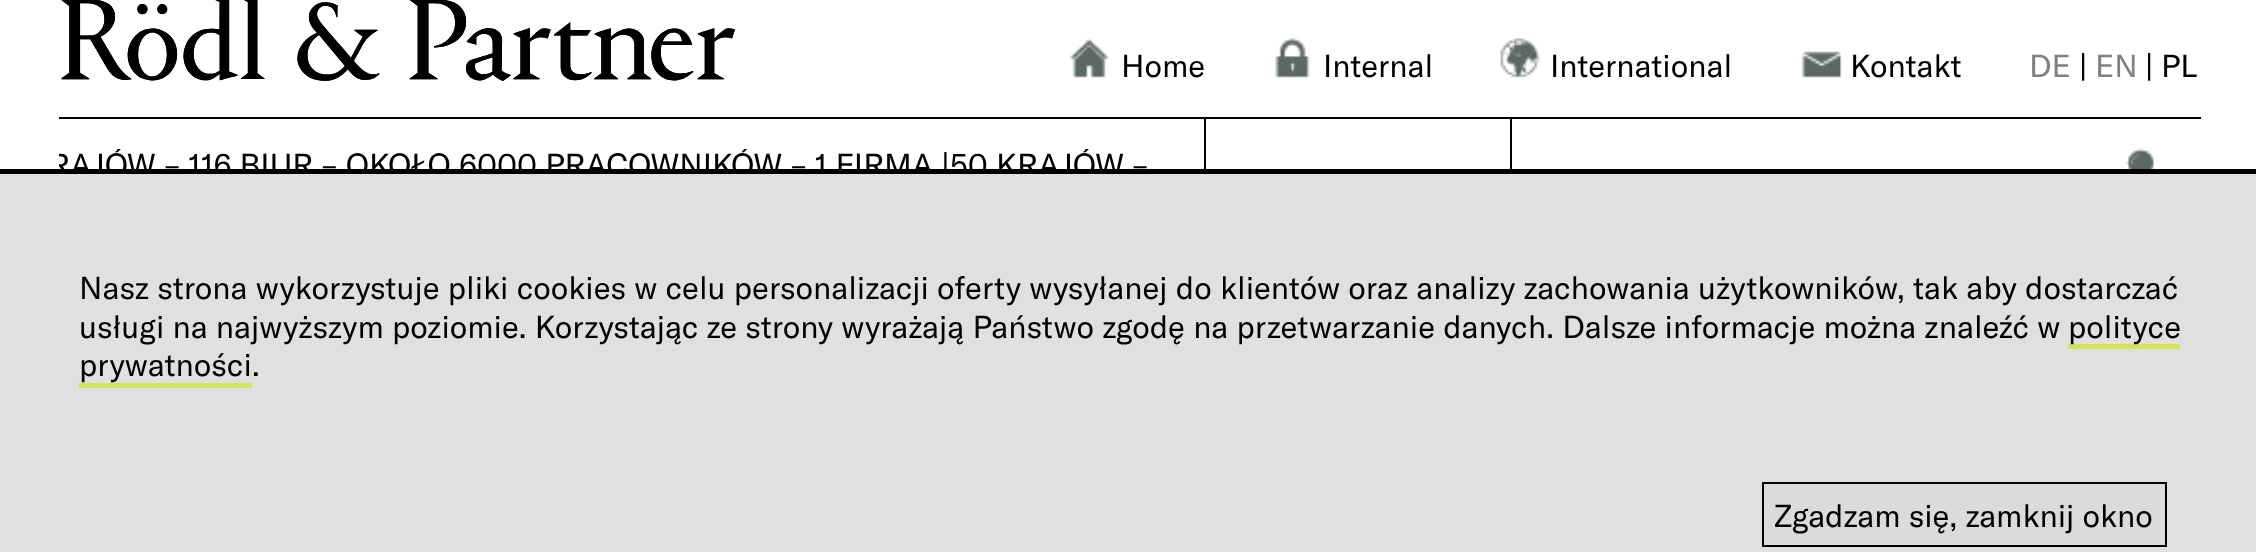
<svg xmlns="http://www.w3.org/2000/svg" width="2256" height="552" viewBox="0 0 2256 552">
  <defs>
    <clipPath id="clip1"><rect x="59" y="142" width="1091" height="45"/></clipPath>
  </defs>
  <rect width="100%" height="100%" fill="#ffffff"/>
  <image x="61" y="0" width="674" height="81" href="img1.png"/>
  <image x="1070" y="38" width="40" height="40" href="img2.png"/>
  <text x="1121" y="77" font-family="GT America" font-size="31.5" fill="#000000">Home</text>
  <image x="1275" y="38" width="35" height="40" href="img3.png"/>
  <text x="1323" y="77" font-family="GT America" font-size="31.5" fill="#000000">Internal</text>
  <image x="1500" y="38" width="40" height="40" href="img4.png"/>
  <text x="1550" y="77" font-family="GT America" font-size="31.5" fill="#000000">International</text>
  <image x="1801" y="51" width="41" height="27" href="img5.png"/>
  <text x="1850" y="77" font-family="GT America" font-size="31.5" fill="#000000">Kontakt</text>
  <text x="2029" y="77" font-family="GT America" font-size="31.5" fill="#808080">DE</text>
  <text x="2079" y="77" font-family="GT America" font-size="31.5" fill="#000000">|</text>
  <text x="2095" y="77" font-family="GT America" font-size="31.5" fill="#808080">EN</text>
  <text x="2145" y="77" font-family="GT America" font-size="31.5" fill="#000000">|</text>
  <text x="2161" y="77" font-family="GT America" font-size="31.5" fill="#000000">PL</text>
  <rect x="59" y="117" width="2142" height="2" fill="#000000"/>
  <g clip-path="url(#clip1)">
    <text x="49" y="176" font-family="GT America" font-size="31.5" fill="#000000">RAJÓW – 116 BIUR – OKOŁO 6000 PRACOWNIKÓW – 1 FIRMA |</text>
  </g>
  <text x="950" y="176" font-family="GT America" font-size="31.5" fill="#000000">50 KRAJÓW –</text>
  <rect x="1204" y="117" width="2" height="52" fill="#000000"/>
  <rect x="1510" y="117" width="2" height="52" fill="#000000"/>
  <image x="2125" y="148" width="29" height="21" href="img6.png"/>
  <rect x="0" y="174" width="2256" height="378" fill="#dee1e0"/>
  <rect x="0" y="169" width="2256" height="5" fill="#000000"/>
  <text x="79" y="299" font-family="GT America" font-size="31.5" fill="#000000">Nasz strona wykorzystuje pliki cookies w celu personalizacji oferty wysyłanej do klientów oraz analizy zachowania użytkowników, tak aby dostarczać</text>
  <text x="79" y="338" font-family="GT America" font-size="31.5" fill="#000000">usługi na najwyższym poziomie. Korzystając ze strony wyrażają Państwo zgodę na przetwarzanie danych. Dalsze informacje można znaleźć w</text>
  <rect x="2068" y="344" width="112" height="5" fill="#d4e458"/>
  <text x="2068" y="338" font-family="GT America" font-size="31.5" fill="#000000">polityce</text>
  <text x="79" y="376" font-family="GT America" font-size="31.5" fill="#000000">prywatności.</text>
  <rect x="79" y="383" width="173" height="5" fill="#d4e458"/>
  <rect x="1763" y="483" width="403" height="63" fill="#dbdbdb" stroke="#000000" stroke-width="2"/>
  <text x="1774" y="527" font-family="GT America" font-size="31.5" fill="#000000">Zgadzam się, zamknij okno</text>
</svg>
